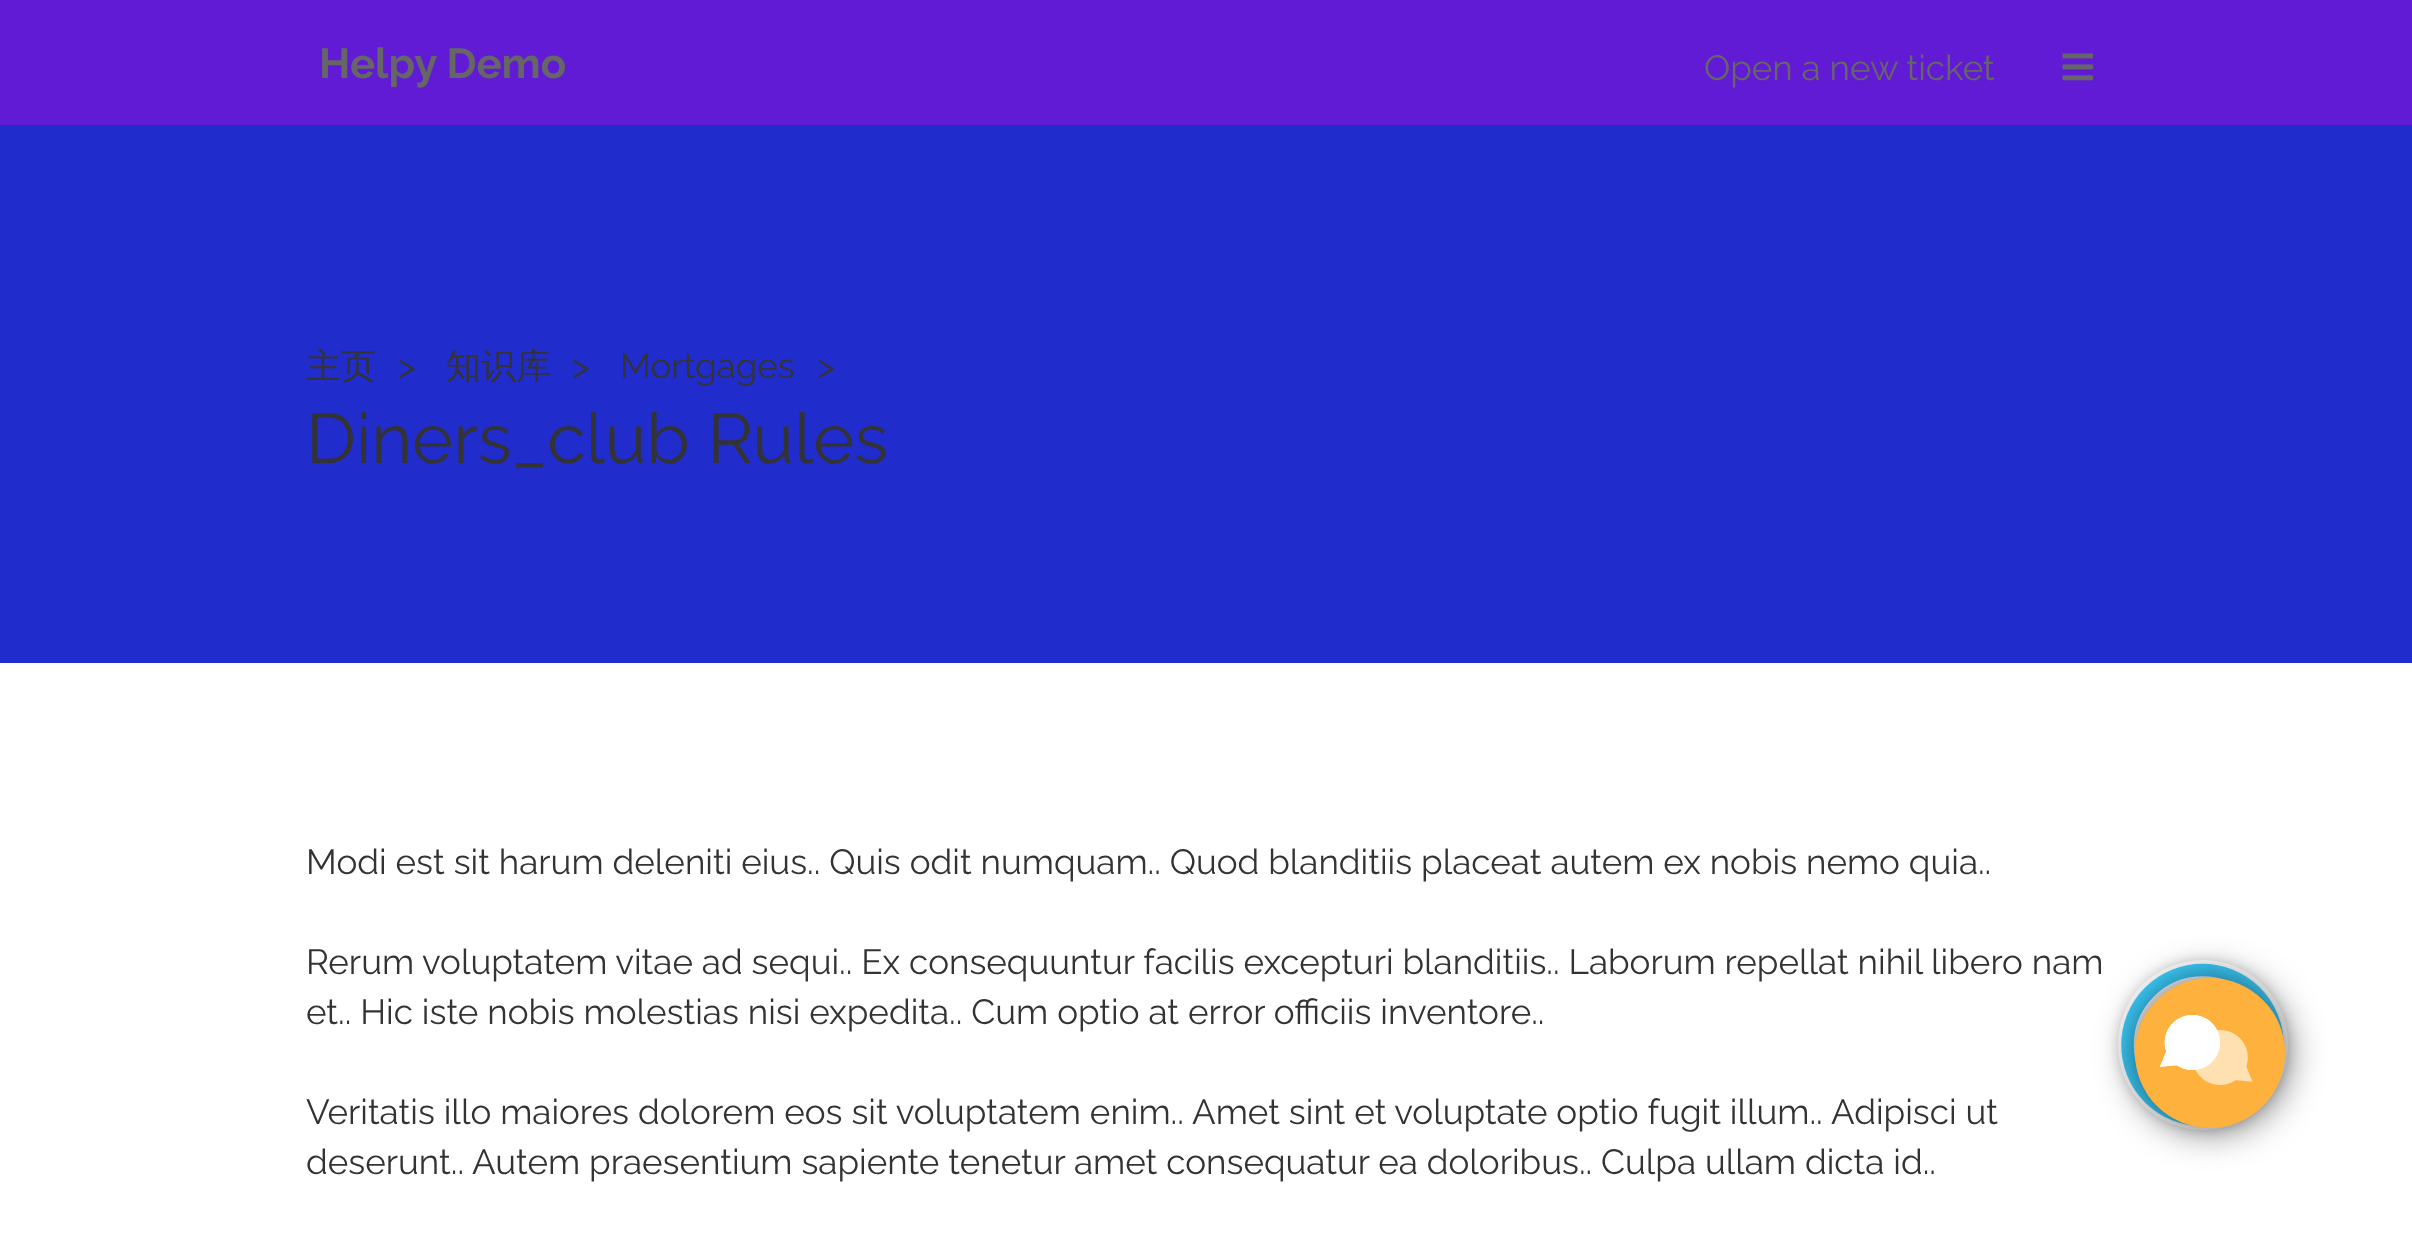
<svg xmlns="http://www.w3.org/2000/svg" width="2412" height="1254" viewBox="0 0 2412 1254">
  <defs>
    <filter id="blur1" x="-50%" y="-200%" width="200%" height="500%"><feGaussianBlur stdDeviation="6"/></filter>
    <filter id="blur2" x="-50%" y="-200%" width="200%" height="500%"><feGaussianBlur stdDeviation="19"/></filter>
  </defs>
  <rect width="100%" height="100%" fill="#ffffff"/>
  <rect x="0" y="0" width="2412" height="125" fill="#621bd4"/>
  <text x="319" y="78" font-family="Raleway" font-size="42" font-weight="bold" fill="#666666">Helpy Demo</text>
  <text x="1704" y="80" font-family="Raleway" font-size="35" fill="#666666">Open a new ticket</text>
  <image x="2062" y="53" width="32" height="28" href="img1.png"/>
  <rect x="0" y="125" width="2412" height="538" fill="#212ccc"/>
  <text x="306" y="378" font-family="WenQuanYi Zen Hei" font-size="35" font-weight="500" fill="#333333">主页</text>
  <text x="398" y="378" font-family="Raleway" font-size="35" fill="#333333">&gt;</text>
  <text x="446" y="378" font-family="WenQuanYi Zen Hei" font-size="35" font-weight="500" fill="#333333">知识库</text>
  <text x="572" y="378" font-family="Raleway" font-size="35" fill="#333333">&gt;</text>
  <text x="620" y="378" font-family="Raleway" font-size="35" fill="#333333">Mortgages</text>
  <text x="817" y="378" font-family="Raleway" font-size="35" fill="#333333">&gt;</text>
  <text x="306" y="463" font-family="Raleway" font-size="70" fill="#333333">Diners_club Rules</text>
  <text x="306" y="874" font-family="Raleway" font-size="35" fill="#333333">Modi est sit harum deleniti eius.. Quis odit numquam.. Quod blanditiis placeat autem ex nobis nemo quia..</text>
  <text x="306" y="974" font-family="Raleway" font-size="35" fill="#333333">Rerum voluptatem vitae ad sequi.. Ex consequuntur facilis excepturi blanditiis.. Laborum repellat nihil libero nam</text>
  <text x="306" y="1024" font-family="Raleway" font-size="35" fill="#333333">et.. Hic iste nobis molestias nisi expedita.. Cum optio at error officiis inventore..</text>
  <text x="306" y="1124" font-family="Raleway" font-size="35" fill="#333333">Veritatis illo maiores dolorem eos sit voluptatem enim..</text>
  <text x="1192" y="1124" font-family="Raleway" font-size="35" fill="#333333">Amet sint et voluptate optio fugit illum..</text>
  <text x="1831" y="1124" font-family="Raleway" font-size="35" fill="#333333">Adipisci ut</text>
  <text x="306" y="1174" font-family="Raleway" font-size="35" fill="#333333">deserunt..</text>
  <text x="472" y="1174" font-family="Raleway" font-size="35" fill="#333333">Autem praesentium sapiente tenetur amet consequatur ea doloribus.. Culpa ullam dicta id..</text>
  <rect x="2118" y="960" width="170" height="170" rx="85" fill="#000000" fill-opacity="0.15" filter="url(#blur1)"/>
  <circle cx="2203" cy="1045" r="85" fill="#ffffff"/>
  <circle cx="2195" cy="1038" r="75" fill="#ffffff"/>
  <circle cx="2202.5" cy="1045" r="75" fill="none" stroke="#3cceff" stroke-width="12.5"/>
  <rect x="2135" y="978" width="150" height="150" rx="75" fill="#000000" fill-opacity="0.65" filter="url(#blur2)"/>
  <circle cx="2210" cy="1053" r="75" fill="#ffb13d"/>
  <image x="2160" y="1015" width="93" height="70" href="img2.png"/>
</svg>
